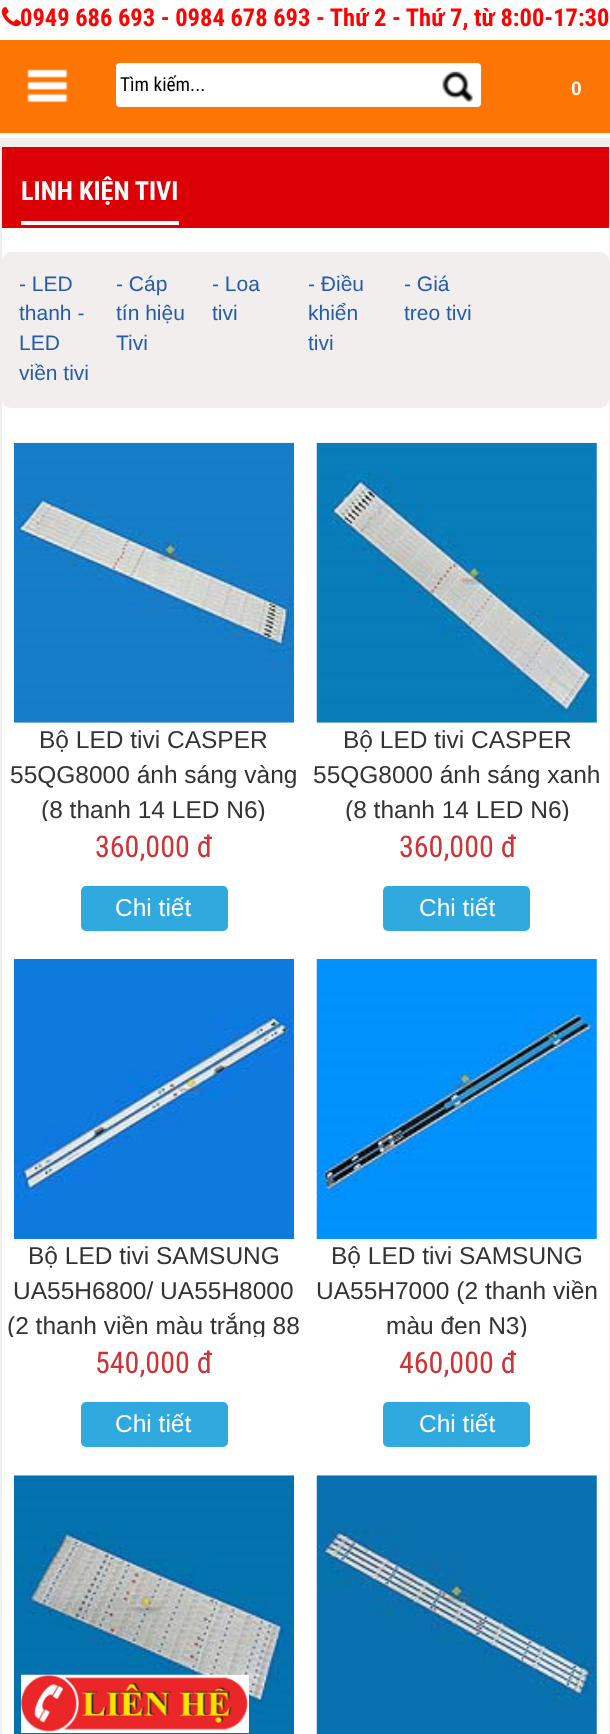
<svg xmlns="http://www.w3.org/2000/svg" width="610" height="1734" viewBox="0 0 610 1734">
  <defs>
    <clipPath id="clip1"><rect x="4" y="723" width="301" height="98"/></clipPath>
    <clipPath id="clip2"><rect x="308" y="723" width="299" height="98"/></clipPath>
    <clipPath id="clip3"><rect x="4" y="1239" width="301" height="98"/></clipPath>
    <clipPath id="clip4"><rect x="308" y="1239" width="299" height="98"/></clipPath>
  </defs>
  <rect width="100%" height="100%" fill="#f0eded"/>
  <rect x="0" y="0" width="610" height="138" fill="#ffffff"/>
  <image x="1" y="7" width="20" height="20" href="img1.png"/>
  <text x="20" y="26" font-family="Roboto Condensed" font-size="24.5" font-weight="bold" fill="#ff0101">0949 686 693 - 0984 678 693 - Thứ 2 - Thứ 7, từ 8:00-17:30</text>
  <rect x="0" y="40" width="610" height="93" fill="#fd7603"/>
  <image x="27" y="69" width="41" height="34" href="img2.png"/>
  <rect x="116" y="63" width="365" height="44" rx="4" fill="#ffffff"/>
  <path d="M121 63H371V107H121C118 107 116 105 116 102V68C116 65 118 63 121 63Z" fill="#ffffff"/>
  <text x="120" y="91" font-family="Roboto Condensed" font-size="19.25" fill="#000000">Tìm kiếm...</text>
  <rect x="443" y="63" width="38" height="44" rx="5" fill="#ffffff"/>
  <image x="442" y="71" width="31" height="31" href="img3.png"/>
  <text x="571" y="95" font-family="Liberation Sans" font-size="19.25" font-weight="bold" fill="#ffffff">0</text>
  <rect x="2" y="228" width="607" height="1506" fill="#ffffff"/>
  <rect x="2" y="147" width="607" height="81" fill="#db0006"/>
  <rect x="21" y="221" width="158" height="4" fill="#ffffff"/>
  <text x="21" y="200" font-family="Roboto Condensed" font-size="26.25" font-weight="bold" fill="#ffffff">LINH KIỆN TIVI</text>
  <rect x="2" y="252" width="607" height="156" rx="9" fill="#f3eeee"/>
  <text x="19" y="291" font-family="Liberation Sans" font-size="21" fill="#245da7">- LED</text>
  <text x="19" y="320" font-family="Liberation Sans" font-size="21" fill="#245da7">thanh -</text>
  <text x="19" y="350" font-family="Liberation Sans" font-size="21" fill="#245da7">LED</text>
  <text x="19" y="380" font-family="Liberation Sans" font-size="21" fill="#245da7">viền tivi</text>
  <text x="116" y="291" font-family="Liberation Sans" font-size="21" fill="#245da7">- Cáp</text>
  <text x="116" y="320" font-family="Liberation Sans" font-size="21" fill="#245da7">tín hiệu</text>
  <text x="116" y="350" font-family="Liberation Sans" font-size="21" fill="#245da7">Tivi</text>
  <text x="212" y="291" font-family="Liberation Sans" font-size="21" fill="#245da7">- Loa</text>
  <text x="212" y="320" font-family="Liberation Sans" font-size="21" fill="#245da7">tivi</text>
  <text x="308" y="291" font-family="Liberation Sans" font-size="21" fill="#245da7">- Điều</text>
  <text x="308" y="320" font-family="Liberation Sans" font-size="21" fill="#245da7">khiển</text>
  <text x="308" y="350" font-family="Liberation Sans" font-size="21" fill="#245da7">tivi</text>
  <text x="404" y="291" font-family="Liberation Sans" font-size="21" fill="#245da7">- Giá</text>
  <text x="404" y="320" font-family="Liberation Sans" font-size="21" fill="#245da7">treo tivi</text>
  <image x="14" y="442" width="280" height="281" href="img4.png"/>
  <text x="39" y="748" font-family="Liberation Sans" font-size="24.5" fill="#333333">Bộ LED tivi CASPER</text>
  <text x="10" y="783" font-family="Liberation Sans" font-size="24.5" fill="#333333">55QG8000 ánh sáng vàng</text>
  <g clip-path="url(#clip1)">
    <text x="41" y="818" font-family="Liberation Sans" font-size="24.5" fill="#333333">(8 thanh 14 LED N6)</text>
  </g>
  <text x="95" y="857" font-family="Roboto Condensed" font-size="30" fill="#cc3536">360,000 đ</text>
  <rect x="81" y="886" width="147" height="45" rx="5" fill="#30a9de"/>
  <text x="115" y="916" font-family="Liberation Sans" font-size="24.5" fill="#ffffff">Chi tiết</text>
  <image x="316" y="442" width="281" height="281" href="img5.png"/>
  <text x="343" y="748" font-family="Liberation Sans" font-size="24.5" fill="#333333">Bộ LED tivi CASPER</text>
  <text x="313" y="783" font-family="Liberation Sans" font-size="24.5" fill="#333333">55QG8000 ánh sáng xanh</text>
  <g clip-path="url(#clip2)">
    <text x="345" y="818" font-family="Liberation Sans" font-size="24.5" fill="#333333">(8 thanh 14 LED N6)</text>
  </g>
  <text x="399" y="857" font-family="Roboto Condensed" font-size="30" fill="#cc3536">360,000 đ</text>
  <rect x="383" y="886" width="147" height="45" rx="5" fill="#30a9de"/>
  <text x="419" y="916" font-family="Liberation Sans" font-size="24.5" fill="#ffffff">Chi tiết</text>
  <image x="14" y="959" width="280" height="280" href="img6.png"/>
  <text x="28" y="1264" font-family="Liberation Sans" font-size="24.5" fill="#333333">Bộ LED tivi SAMSUNG</text>
  <text x="13" y="1299" font-family="Liberation Sans" font-size="24.5" fill="#333333">UA55H6800/ UA55H8000</text>
  <g clip-path="url(#clip3)">
    <text x="7" y="1334" font-family="Liberation Sans" font-size="24.5" fill="#333333">(2 thanh viền màu trắng 88</text>
  </g>
  <text x="95" y="1373" font-family="Roboto Condensed" font-size="30" fill="#cc3536">540,000 đ</text>
  <rect x="81" y="1402" width="147" height="45" rx="5" fill="#30a9de"/>
  <text x="115" y="1432" font-family="Liberation Sans" font-size="24.5" fill="#ffffff">Chi tiết</text>
  <image x="316" y="959" width="281" height="280" href="img7.png"/>
  <text x="331" y="1264" font-family="Liberation Sans" font-size="24.5" fill="#333333">Bộ LED tivi SAMSUNG</text>
  <text x="316" y="1299" font-family="Liberation Sans" font-size="24.5" fill="#333333">UA55H7000 (2 thanh viền</text>
  <g clip-path="url(#clip4)">
    <text x="386" y="1334" font-family="Liberation Sans" font-size="24.5" fill="#333333">màu đen N3)</text>
  </g>
  <text x="399" y="1373" font-family="Roboto Condensed" font-size="30" fill="#cc3536">460,000 đ</text>
  <rect x="383" y="1402" width="147" height="45" rx="5" fill="#30a9de"/>
  <text x="419" y="1432" font-family="Liberation Sans" font-size="24.5" fill="#ffffff">Chi tiết</text>
  <image x="14" y="1475" width="280" height="259" href="img8.png"/>
  <image x="316" y="1475" width="281" height="259" href="img9.png"/>
  <rect x="21" y="1675" width="228" height="58" fill="#efefef"/>
  <image x="21" y="1674" width="228" height="59" href="img10.png"/>
</svg>
